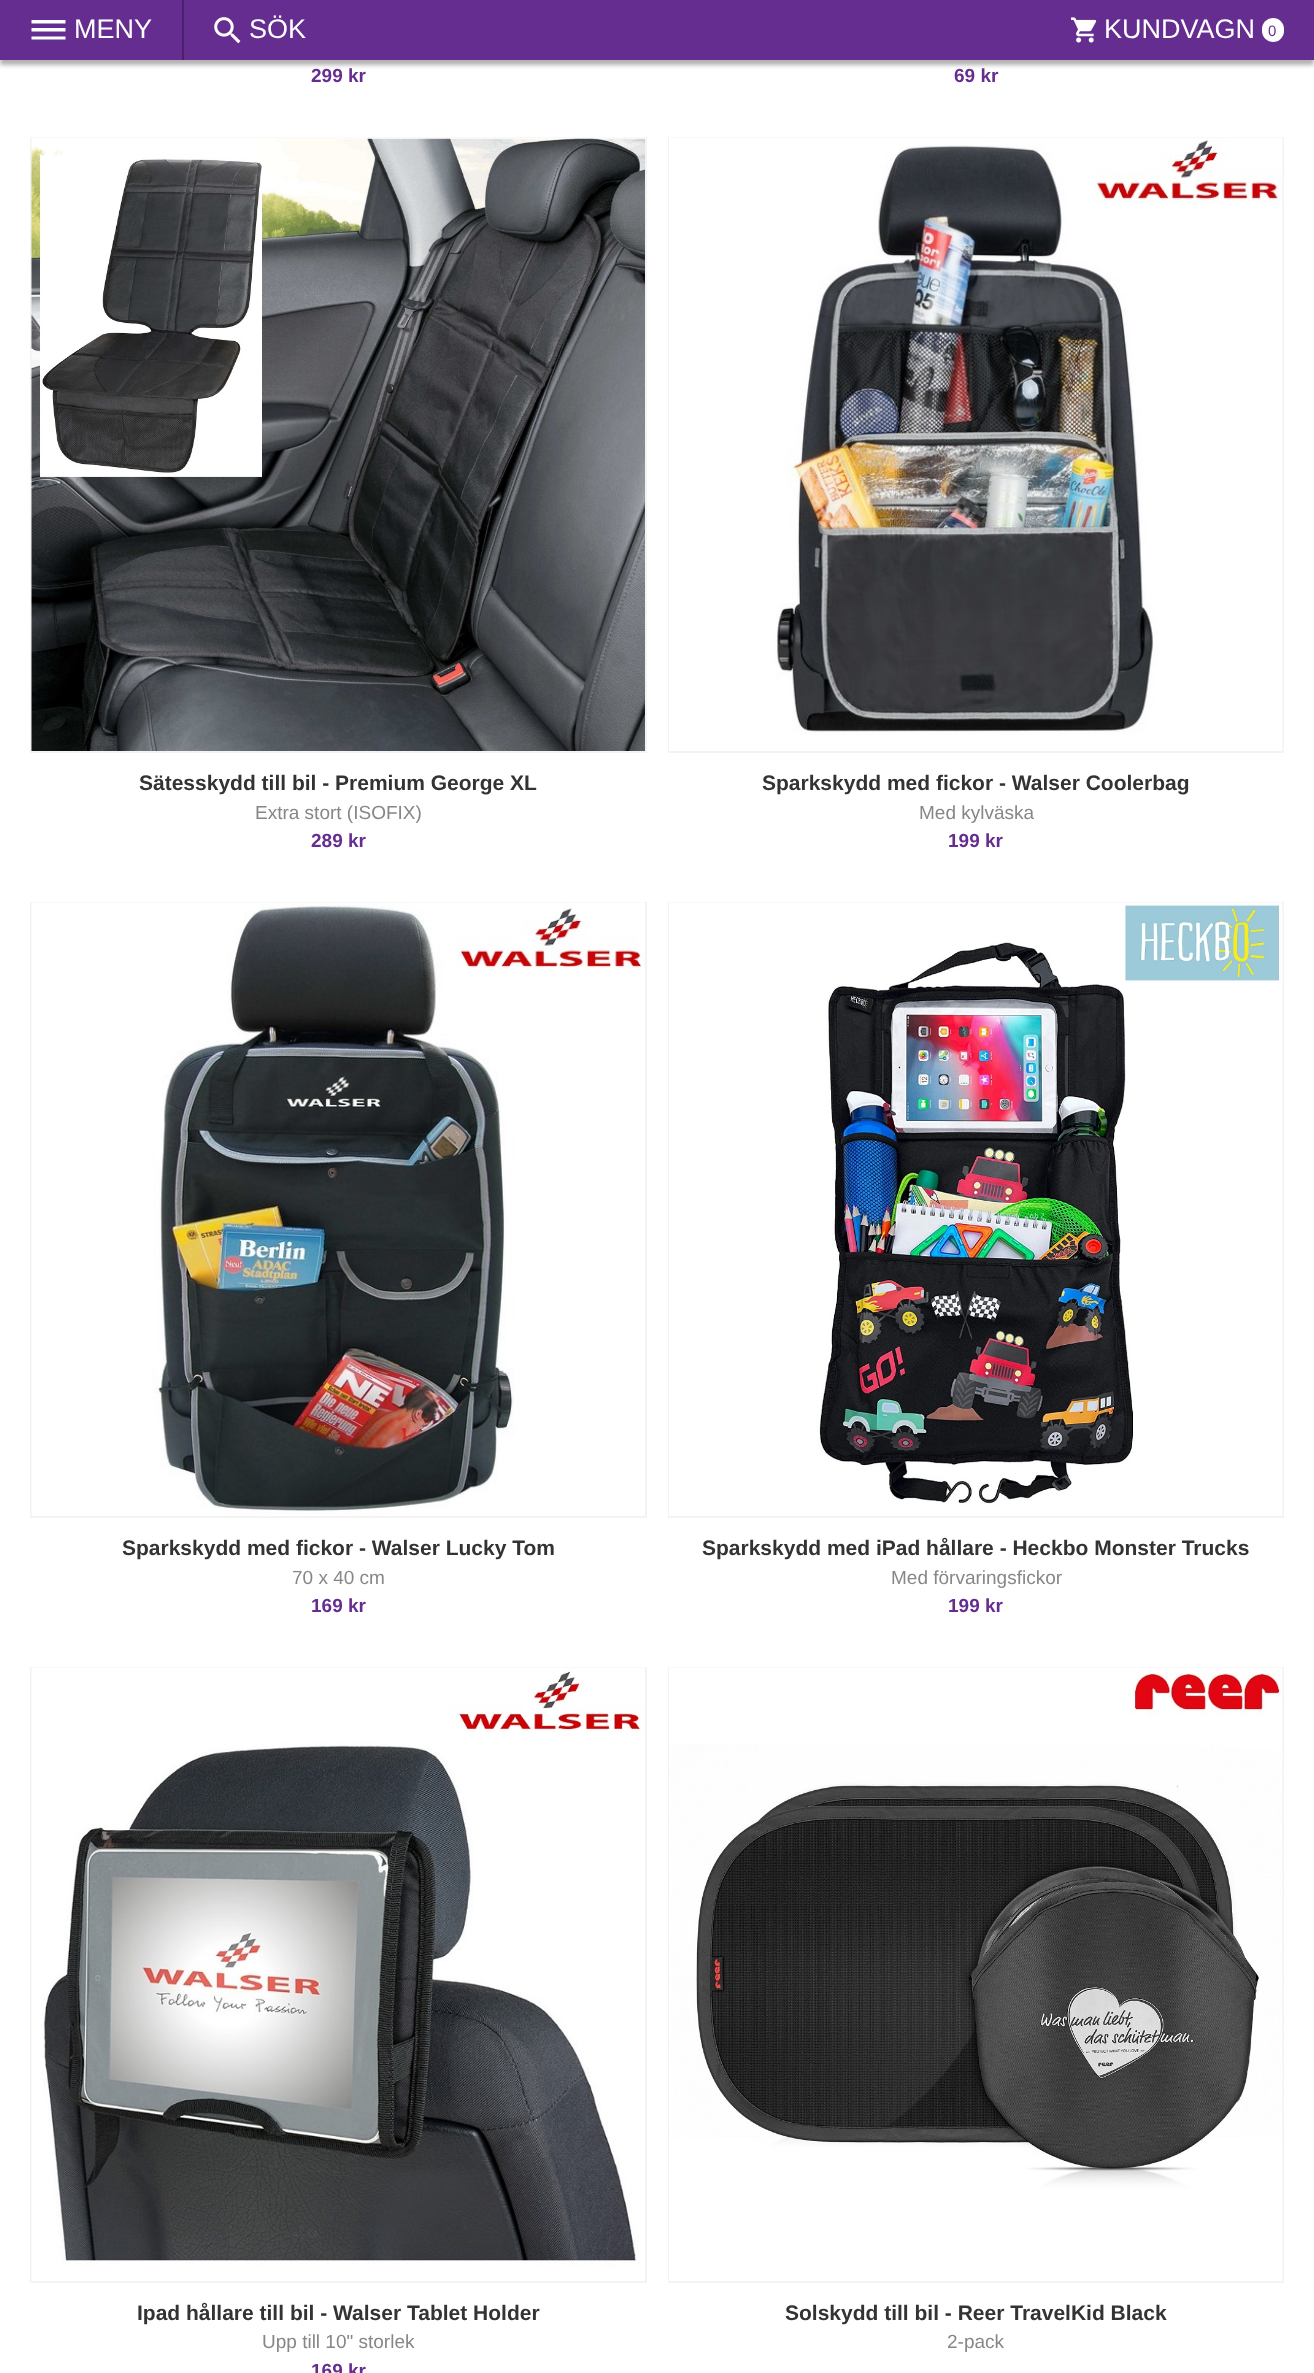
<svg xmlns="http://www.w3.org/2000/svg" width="1314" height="2373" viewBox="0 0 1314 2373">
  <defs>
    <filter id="blur1" x="-50%" y="-200%" width="200%" height="500%"><feGaussianBlur stdDeviation="2"/></filter>
  </defs>
  <rect width="100%" height="100%" fill="#ffffff"/>
  <rect x="0" y="5" width="1314" height="60" fill="#000000" fill-opacity="0.3" filter="url(#blur1)"/>
  <rect x="0" y="0" width="1314" height="60" fill="#662d91"/>
  <rect x="182" y="0" width="2" height="60" fill="#4b216a"/>
  <path d="M31.5 39.5H65.5V36.5H31.5ZM31.5 31.5H65.5V28H31.5ZM31.5 20V23.5H65.5V20Z" fill="#ffffff" fill-rule="evenodd"/>
  <text x="74" y="38" font-family="Liberation Sans" font-size="27" fill="#ffffff">MENY</text>
  <image x="214" y="17" width="27" height="27" href="img1.png"/>
  <text x="249" y="38" font-family="Liberation Sans" font-size="27" fill="#ffffff">SÖK</text>
  <image x="1071" y="17" width="26" height="26" href="img2.png"/>
  <text x="1104" y="38" font-family="Liberation Sans" font-size="27" fill="#ffffff">KUNDVAGN</text>
  <rect x="1262" y="18" width="22" height="24" rx="11" fill="#ffffff"/>
  <text x="1268" y="36" font-family="Liberation Sans" font-size="15" fill="#662d91">0</text>
  <text x="311" y="82" font-family="Liberation Sans" font-size="19" font-weight="bold" fill="#662d91">299 kr</text>
  <text x="954" y="82" font-family="Liberation Sans" font-size="19" font-weight="bold" fill="#662d91">69 kr</text>
  <rect x="31" y="138" width="615" height="614" fill="none" stroke="#f3f3f3" stroke-width="2"/>
  <image x="31" y="137" width="614" height="614" href="img3.png"/>
  <text x="139" y="790" font-family="Liberation Sans" font-size="21" font-weight="bold" fill="#333333">Sätesskydd till bil - Premium George XL</text>
  <text x="255" y="819" font-family="Liberation Sans" font-size="19" fill="#878787">Extra stort (ISOFIX)</text>
  <text x="311" y="847" font-family="Liberation Sans" font-size="19" font-weight="bold" fill="#662d91">289 kr</text>
  <rect x="669" y="138" width="614" height="614" fill="none" stroke="#f3f3f3" stroke-width="2"/>
  <image x="669" y="137" width="614" height="614" href="img4.png"/>
  <text x="762" y="790" font-family="Liberation Sans" font-size="21" font-weight="bold" fill="#333333">Sparkskydd med fickor - Walser Coolerbag</text>
  <text x="919" y="819" font-family="Liberation Sans" font-size="19" fill="#878787">Med kylväska</text>
  <text x="948" y="847" font-family="Liberation Sans" font-size="19" font-weight="bold" fill="#662d91">199 kr</text>
  <rect x="31" y="903" width="615" height="614" fill="none" stroke="#f3f3f3" stroke-width="2"/>
  <image x="31" y="902" width="614" height="614" href="img5.png"/>
  <text x="122" y="1555" font-family="Liberation Sans" font-size="21" font-weight="bold" fill="#333333">Sparkskydd med fickor - Walser Lucky Tom</text>
  <text x="292" y="1584" font-family="Liberation Sans" font-size="19" fill="#878787">70 x 40 cm</text>
  <text x="311" y="1612" font-family="Liberation Sans" font-size="19" font-weight="bold" fill="#662d91">169 kr</text>
  <rect x="669" y="903" width="614" height="614" fill="none" stroke="#f3f3f3" stroke-width="2"/>
  <image x="669" y="902" width="614" height="614" href="img6.png"/>
  <text x="702" y="1555" font-family="Liberation Sans" font-size="21" font-weight="bold" fill="#333333">Sparkskydd med iPad hållare - Heckbo Monster Trucks</text>
  <text x="891" y="1584" font-family="Liberation Sans" font-size="19" fill="#878787">Med förvaringsfickor</text>
  <text x="948" y="1612" font-family="Liberation Sans" font-size="19" font-weight="bold" fill="#662d91">199 kr</text>
  <rect x="31" y="1668" width="615" height="614" fill="none" stroke="#f3f3f3" stroke-width="2"/>
  <image x="31" y="1667" width="614" height="614" href="img7.png"/>
  <text x="137" y="2320" font-family="Liberation Sans" font-size="21" font-weight="bold" fill="#333333">Ipad hållare till bil - Walser Tablet Holder</text>
  <text x="262" y="2348" font-family="Liberation Sans" font-size="19" fill="#878787">Upp till 10" storlek</text>
  <text x="311" y="2377" font-family="Liberation Sans" font-size="19" font-weight="bold" fill="#662d91">169 kr</text>
  <rect x="669" y="1668" width="614" height="614" fill="none" stroke="#f3f3f3" stroke-width="2"/>
  <image x="669" y="1667" width="614" height="614" href="img8.png"/>
  <text x="785" y="2320" font-family="Liberation Sans" font-size="21" font-weight="bold" fill="#333333">Solskydd till bil - Reer TravelKid Black</text>
  <text x="947" y="2348" font-family="Liberation Sans" font-size="19" fill="#878787">2-pack</text>
</svg>
